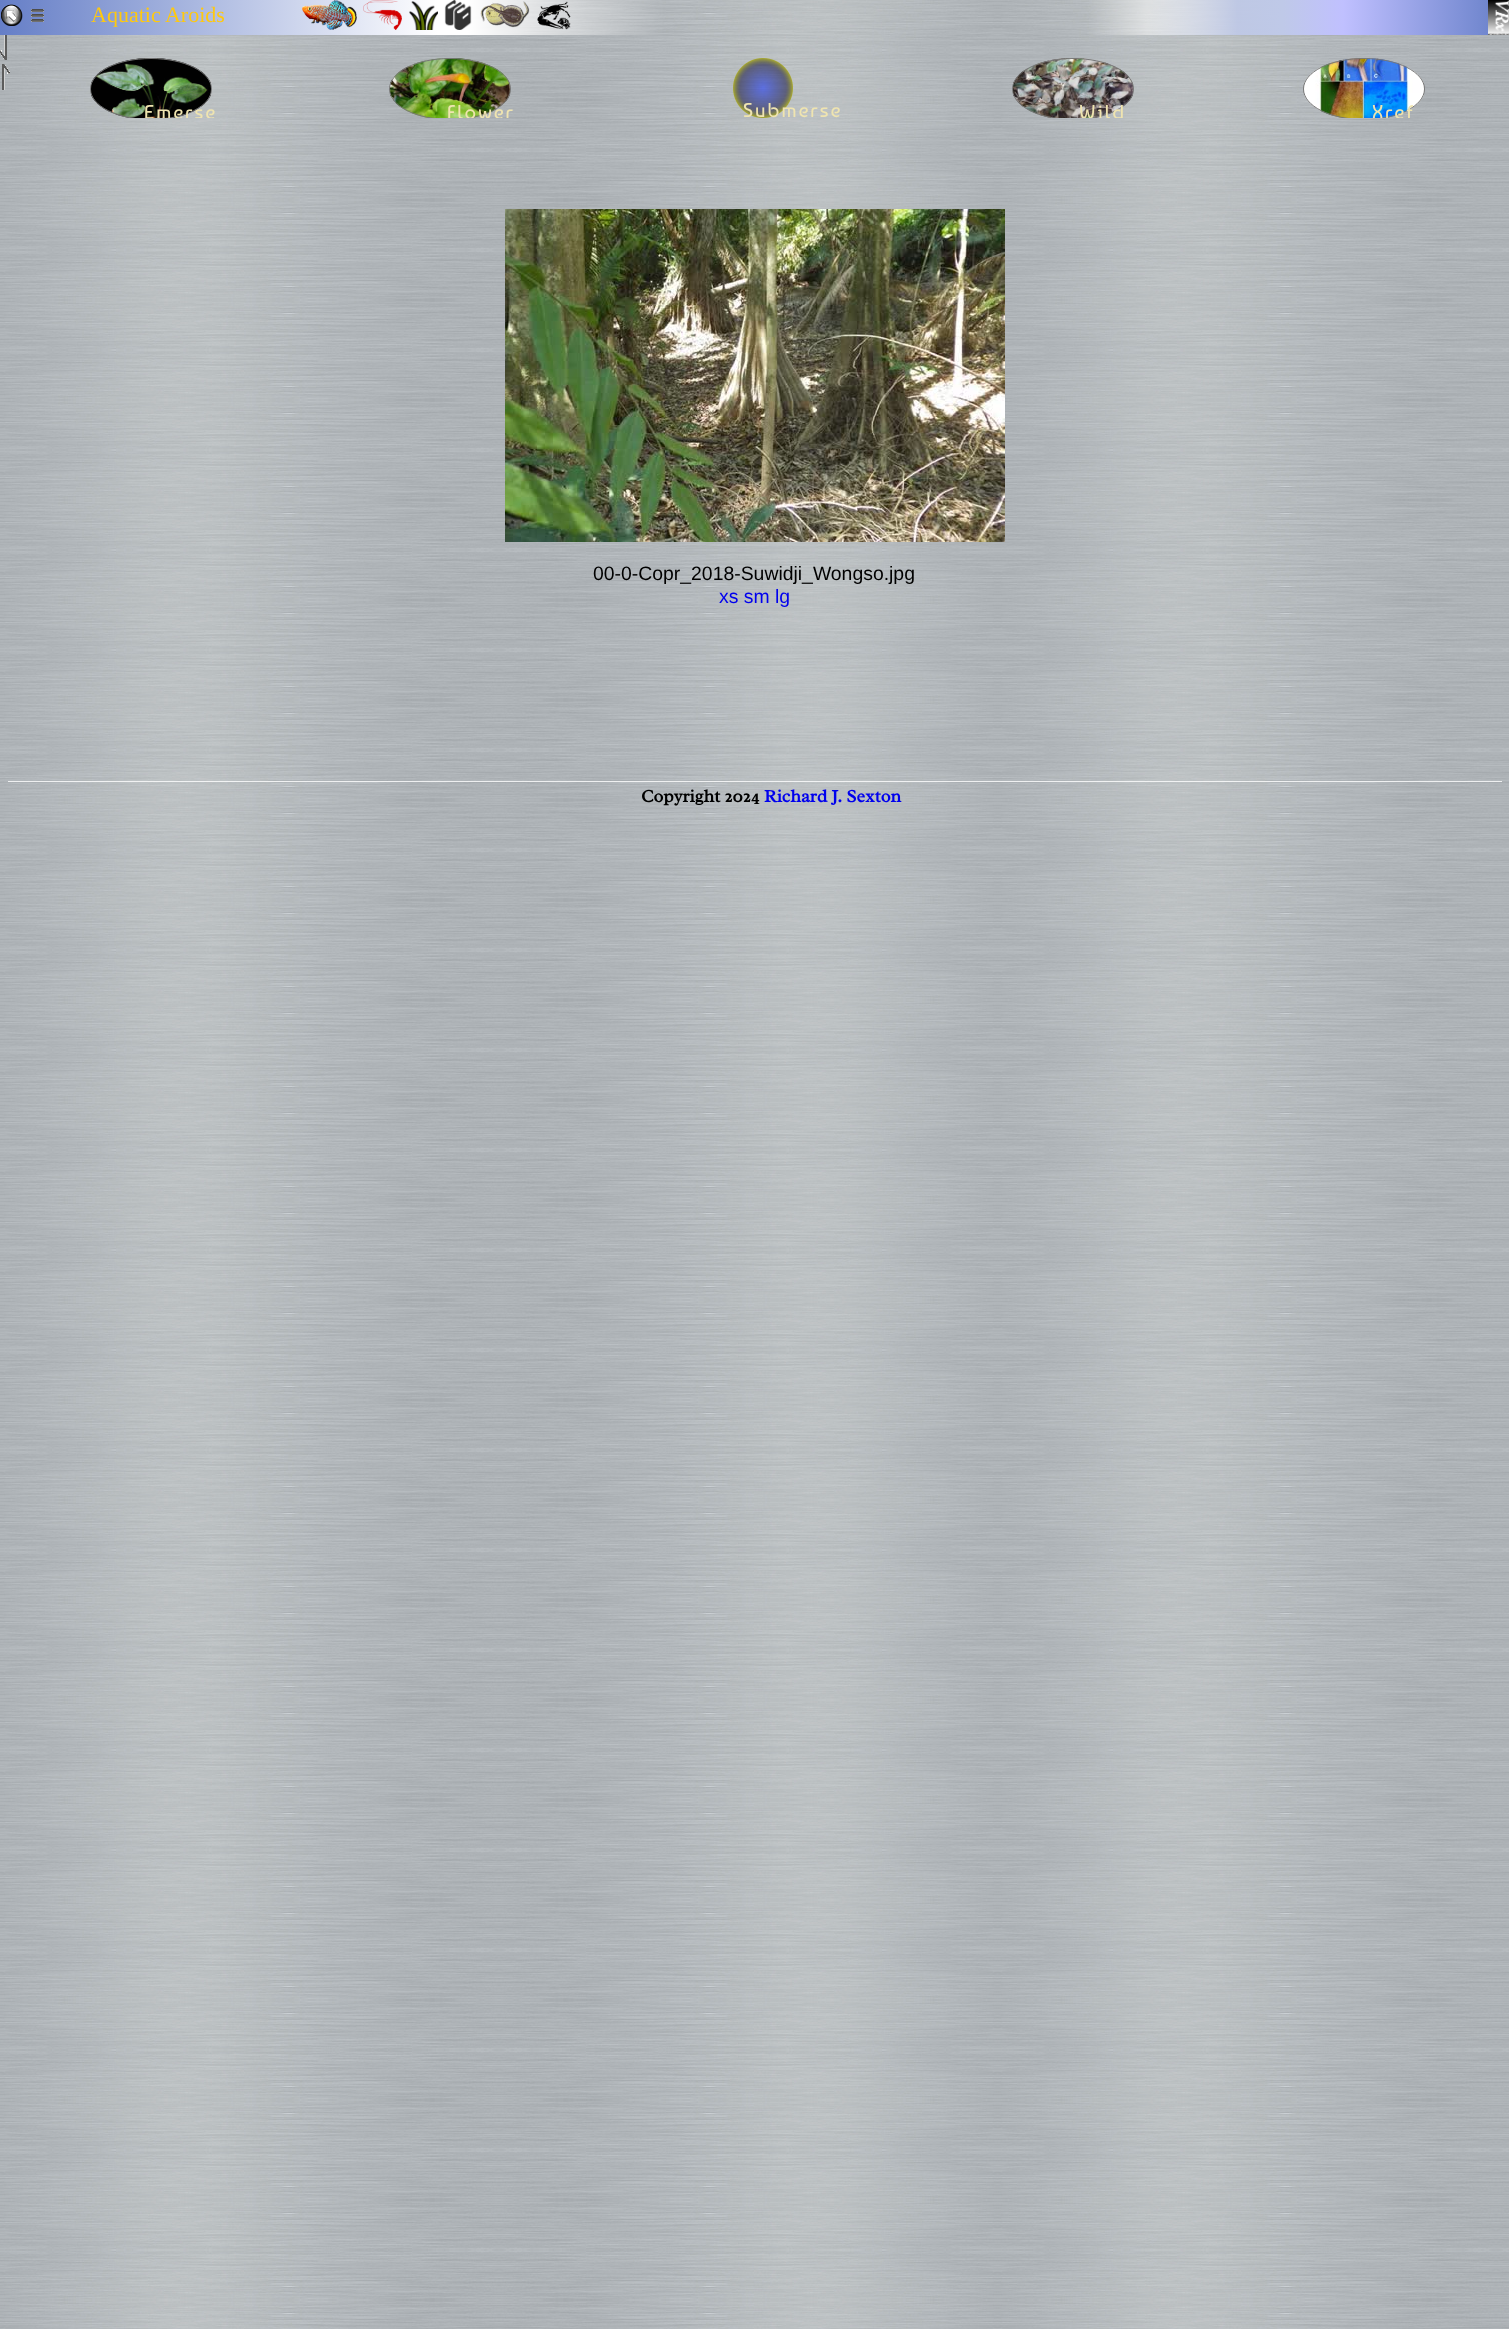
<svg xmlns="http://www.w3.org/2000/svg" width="1509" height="2329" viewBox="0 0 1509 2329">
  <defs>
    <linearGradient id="g1" gradientUnits="userSpaceOnUse" x1="0" y1="18" x2="1509" y2="17"><stop offset="0" stop-color="#657ec7"/><stop offset="0.29" stop-color="#ffffff"/><stop offset="0.31" stop-color="#ffffff"/><stop offset="0.36" stop-color="#ffffff" stop-opacity="0.6"/><stop offset="0.44" stop-color="#ffffff" stop-opacity="0"/><stop offset="0.72" stop-color="#ffffff" stop-opacity="0"/><stop offset="0.76" stop-color="#ffffff" stop-opacity="0.5"/><stop offset="0.82" stop-color="#bfc9e8" stop-opacity="0.9"/><stop offset="0.85" stop-color="#bfc9e8"/><stop offset="0.89" stop-color="#c0c0ff"/><stop offset="1" stop-color="#657ec7"/></linearGradient>
    <clipPath id="clip1"><rect x="84" y="58" width="134" height="60"/></clipPath>
    <clipPath id="clip2"><rect x="387" y="58" width="127" height="60"/></clipPath>
    <clipPath id="clip3"><rect x="1012" y="58" width="122" height="60"/></clipPath>
    <clipPath id="clip4"><rect x="1303" y="58" width="122" height="60"/></clipPath>
  </defs>
  <rect width="100%" height="100%" fill="#ffffff"/>
  <image x="0" y="0" width="1509" height="2329" href="img1.png"/>
  <rect x="0" y="0" width="1488" height="35" fill="url(#g1)"/>
  <image x="302" y="0" width="55" height="30" href="img2.png"/>
  <image x="363" y="0" width="39" height="30" href="img3.png"/>
  <image x="409" y="1" width="29" height="29" href="img4.png"/>
  <image x="444" y="0" width="28" height="30" href="img5.png"/>
  <image x="480" y="1" width="50" height="27" href="img6.png"/>
  <image x="537" y="1" width="34" height="29" href="img7.png"/>
  <image x="1488" y="0" width="21" height="35" href="img8.png"/>
  <image x="1" y="4" width="22" height="22" href="img9.png"/>
  <image x="31" y="9" width="13" height="13" href="img10.png"/>
  <rect x="8" y="781" width="1494" height="1" fill="#ffffff" fill-opacity="0.8"/>
  <text x="91" y="22" font-family="Liberation Serif" font-size="22" fill="#ffc90e">Aquatic Aroids</text>
  <text x="641" y="802" font-family="Radley" font-size="18" font-weight="bold" fill="#000000">Copyright 2024</text>
  <text x="764" y="802" font-family="Radley" font-size="18" font-weight="bold" fill="#0000ee">Richard J. Sexton</text>
  <image x="505" y="209" width="500" height="333" href="img11.png"/>
  <text x="593" y="580" font-family="Liberation Sans" font-size="19.4" fill="#000000">00-0-Copr_2018-Suwidji_Wongso.jpg</text>
  <text x="719" y="603" font-family="Liberation Sans" font-size="19.4" fill="#0000ee">xs sm lg</text>
  <image x="0" y="35" width="7" height="25" href="img12.png"/>
  <image x="2" y="64" width="8" height="26" href="img13.png"/>
  <image x="91" y="58" width="120" height="60" href="img14.png"/>
  <g clip-path="url(#clip1)">
    <path d="M151 58.5C184.5 58.5 211.5 72 211.5 89C211.5 106 184.5 119.5 151 119.5C117.5 119.5 90.5 106 90.5 89C90.5 72 117.5 58.5 151 58.5Z" fill="none" stroke="#787878"/>
    <text x="144" y="119" font-family="Baumans" font-size="20" letter-spacing="2" fill="#efe4b0">Emerse</text>
  </g>
  <image x="390" y="58" width="120" height="60" href="img15.png"/>
  <g clip-path="url(#clip2)">
    <path d="M450 58.5C483.5 58.5 510.5 72 510.5 89C510.5 106 483.5 119.5 450 119.5C416.5 119.5 389.5 106 389.5 89C389.5 72 416.5 58.5 450 58.5Z" fill="none" stroke="#787878"/>
    <text x="447" y="119" font-family="Baumans" font-size="20" letter-spacing="2" fill="#efe4b0">Flower</text>
  </g>
  <text x="743" y="117" font-family="Baumans" font-size="20" letter-spacing="2" fill="#efe4b0">Submerse</text>
  <image x="1013" y="58" width="120" height="60" href="img16.png"/>
  <g clip-path="url(#clip3)">
    <path d="M1073 58.5C1106.5 58.5 1133.5 72 1133.5 89C1133.5 106 1106.5 119.5 1073 119.5C1039.5 119.5 1012.5 106 1012.5 89C1012.5 72 1039.5 58.5 1073 58.5Z" fill="none" stroke="#787878"/>
    <text x="1079" y="119" font-family="Baumans" font-size="20" letter-spacing="2" fill="#efe4b0">Wild</text>
  </g>
  <image x="1304" y="58" width="120" height="60" href="img17.png"/>
  <g clip-path="url(#clip4)">
    <path d="M1364 58.5C1397.5 58.5 1424.5 72 1424.5 89C1424.5 106 1397.5 119.5 1364 119.5C1330.5 119.5 1303.5 106 1303.5 89C1303.5 72 1330.5 58.5 1364 58.5Z" fill="none" stroke="#787878"/>
    <text x="1372" y="119" font-family="Baumans" font-size="20" letter-spacing="2" fill="#efe4b0">Xref</text>
  </g>
</svg>
